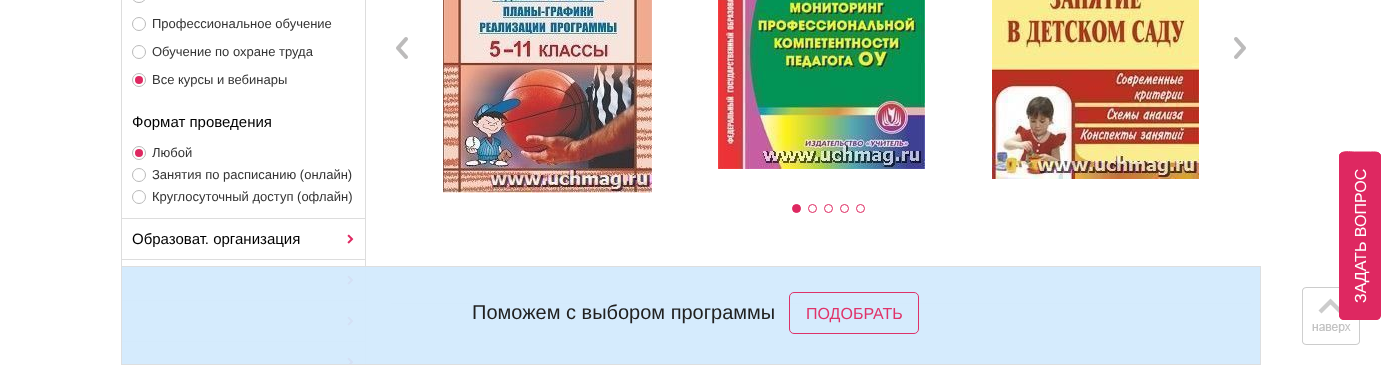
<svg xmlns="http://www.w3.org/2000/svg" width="1381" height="365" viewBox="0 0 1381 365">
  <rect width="100%" height="100%" fill="#ffffff"/>
  <rect x="121.5" y="-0.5" width="244" height="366" fill="none" stroke="#dddddd"/>
  <rect x="132.5" y="-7.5" width="13" height="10" rx="6.5" fill="none" stroke="#bababa"/>
  <circle cx="139" cy="24" r="6.5" fill="none" stroke="#bababa"/>
  <text x="152" y="28" font-family="Liberation Sans" font-size="13" fill="#333333">Профессиональное обучение</text>
  <circle cx="139" cy="52" r="6.5" fill="none" stroke="#bababa"/>
  <text x="152" y="56" font-family="Liberation Sans" font-size="13" fill="#333333">Обучение по охране труда</text>
  <circle cx="139" cy="80" r="6.5" fill="none" stroke="#bababa"/>
  <circle cx="139" cy="80" r="4" fill="#de2861"/>
  <text x="152" y="84" font-family="Liberation Sans" font-size="13" fill="#333333">Все курсы и вебинары</text>
  <text x="132" y="127" font-family="Liberation Sans" font-size="15" fill="#000000">Формат проведения</text>
  <circle cx="139" cy="153" r="6.5" fill="none" stroke="#bababa"/>
  <circle cx="139" cy="153" r="4" fill="#de2861"/>
  <text x="152" y="157" font-family="Liberation Sans" font-size="13" fill="#333333">Любой</text>
  <circle cx="139" cy="175" r="6.5" fill="none" stroke="#bababa"/>
  <text x="152" y="179" font-family="Liberation Sans" font-size="13" fill="#333333">Занятия по расписанию (онлайн)</text>
  <circle cx="139" cy="197" r="6.5" fill="none" stroke="#bababa"/>
  <text x="152" y="201" font-family="Liberation Sans" font-size="13" fill="#333333">Круглосуточный доступ (офлайн)</text>
  <rect x="122" y="218" width="243" height="1" fill="#dddddd"/>
  <rect x="122" y="259" width="243" height="1" fill="#dddddd"/>
  <text x="132" y="244" font-family="Liberation Sans" font-size="15" fill="#000000">Образоват. организация</text>
  <image x="347" y="234" width="7" height="10" href="img1.png"/>
  <rect x="122" y="300" width="243" height="1" fill="#dddddd"/>
  <image x="347" y="275" width="7" height="10" href="img1.png"/>
  <rect x="122" y="341" width="243" height="1" fill="#dddddd"/>
  <image x="347" y="316" width="7" height="10" href="img1.png"/>
  <image x="347" y="357" width="7" height="8" href="img2.png"/>
  <image x="396" y="37" width="12" height="22" href="img3.png"/>
  <image x="443" y="0" width="209" height="193" href="img4.png"/>
  <image x="718" y="0" width="207" height="169" href="img5.png"/>
  <image x="992" y="0" width="207" height="179" href="img6.png"/>
  <image x="1234" y="37" width="12" height="22" href="img7.png"/>
  <circle cx="796.5" cy="208.5" r="4" fill="#de2861" stroke="#de2861"/>
  <circle cx="812.5" cy="208.5" r="4" fill="none" stroke="#de2861"/>
  <circle cx="828.5" cy="208.5" r="4" fill="none" stroke="#de2861"/>
  <circle cx="844.5" cy="208.5" r="4" fill="none" stroke="#de2861"/>
  <circle cx="860.5" cy="208.5" r="4" fill="none" stroke="#de2861"/>
  <rect x="391" y="303" width="860" height="1" fill="#dddddd"/>
  <rect x="121" y="266" width="1140" height="99" fill="#d3eafd" fill-opacity="0.95"/>
  <rect x="121.5" y="266.5" width="1139" height="98" fill="none" stroke="#dddddd" stroke-opacity="0.95"/>
  <text x="472" y="319" font-family="Liberation Sans" font-size="20" fill="#212121">Поможем с выбором программы</text>
  <rect x="789.5" y="292.5" width="129" height="41" rx="4.5" fill="none" stroke="#de3269"/>
  <text x="806" y="319" font-family="Liberation Sans" font-size="16" fill="#e03369">ПОДОБРАТЬ</text>
  <image x="1302" y="287" width="58" height="58" href="img8.png"/>
  <path d="M1339 315V156C1339 154 1341 152 1344 152H1376C1379 152 1381 154 1381 156V315C1381 318 1379 320 1376 320H1344C1341 320 1339 318 1339 315Z" fill="#de2861"/>
  <path d="M1339.5 315V155.5C1340.5 150 1351 152 1354.5 152H1370.5C1374 152 1380.5 151 1380.5 156.5V315L1379 318L1376 319H1354.5C1351 319 1339.5 321.5 1339.5 315Z" fill="none" stroke="#de2861"/>
  <text x="1366" y="303" transform="rotate(-90 1366 303)" font-family="Liberation Sans" font-size="16" fill="#ffffff">ЗАДАТЬ ВОПРОС</text>
</svg>
